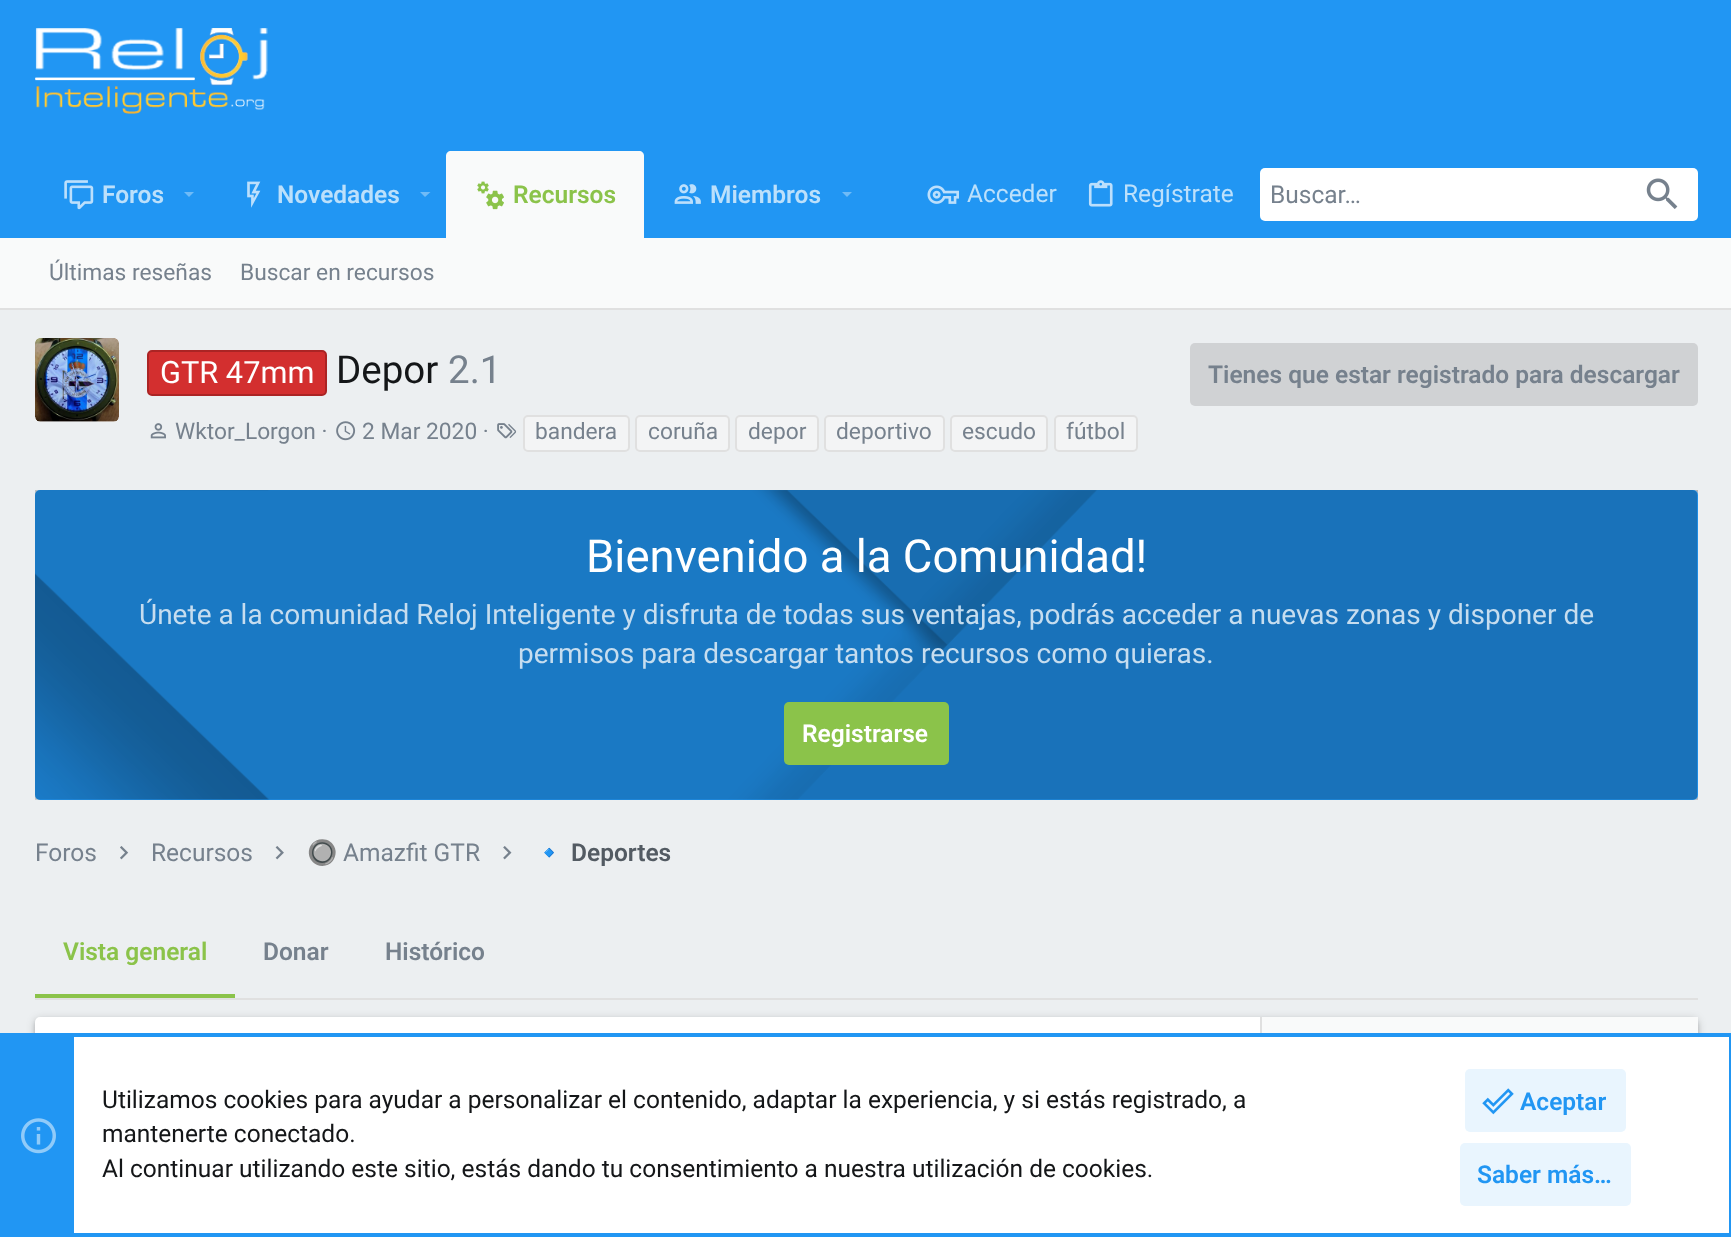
<svg xmlns="http://www.w3.org/2000/svg" width="1731" height="1237" viewBox="0 0 1731 1237">
  <defs>
    <filter id="blur1" x="-50%" y="-200%" width="200%" height="500%"><feGaussianBlur stdDeviation="4.5"/></filter>
    <filter id="blur2" x="-50%" y="-200%" width="200%" height="500%"><feGaussianBlur stdDeviation="2"/></filter>
  </defs>
  <rect width="100%" height="100%" fill="#eceff1"/>
  <rect x="0" y="0" width="1731" height="238" fill="#2196f3"/>
  <image x="35" y="28" width="233" height="86" href="img1.png"/>
  <image x="64" y="180" width="30" height="30" href="img2.png"/>
  <text x="102" y="203" font-family="Roboto" font-size="24.5" font-weight="600" fill="#bce0fb">Foros</text>
  <path d="M184 192L189 197L194 192Z" fill="#6fbbf7"/>
  <image x="247" y="181" width="14" height="27" href="img3.png"/>
  <text x="277" y="203" font-family="Roboto" font-size="24.5" font-weight="600" fill="#bce0fb">Novedades</text>
  <path d="M420 192L425 197L430.5 192Z" fill="#6fbbf7"/>
  <path d="M451 151H639C642 151 644 153 644 156V238H446V156C446 153 448 151 451 151Z" fill="#f9fafa"/>
  <image x="477" y="181" width="27" height="29" href="img4.png"/>
  <text x="513" y="203" font-family="Roboto" font-size="24.5" font-weight="600" fill="#8bc34a">Recursos</text>
  <image x="674" y="184" width="27" height="20" href="img5.png"/>
  <text x="710" y="203" font-family="Roboto" font-size="24.5" font-weight="600" fill="#bce0fb">Miembros</text>
  <path d="M842 192L847 197L852 192Z" fill="#6fbbf7"/>
  <image x="927" y="185" width="32" height="19" href="img6.png"/>
  <text x="967" y="202" font-family="Roboto" font-size="24.5" fill="#bce0fb">Acceder</text>
  <image x="1088" y="180" width="25" height="27" href="img7.png"/>
  <text x="1123" y="202" font-family="Roboto" font-size="24.5" fill="#bce0fb">Regístrate</text>
  <rect x="1260" y="168" width="438" height="53" rx="5" fill="#ffffff"/>
  <text x="1270" y="203" font-family="Roboto" font-size="24.5" fill="#76818d">Buscar…</text>
  <image x="1646" y="178" width="32" height="31" href="img8.png"/>
  <rect x="0" y="238" width="1731" height="70" fill="#f9fafa"/>
  <rect x="0" y="308" width="1731" height="2" fill="#e0e0e0"/>
  <text x="49" y="280" font-family="Roboto" font-size="22.75" fill="#76818d">Últimas reseñas</text>
  <text x="240" y="280" font-family="Roboto" font-size="22.75" fill="#76818d">Buscar en recursos</text>
  <rect x="35" y="338" width="84" height="84" rx="5" fill="#ffffff"/>
  <image x="35" y="338" width="84" height="84" href="img9.png"/>
  <rect x="148" y="351" width="178" height="44" rx="4" fill="#d32f2f" stroke="#ab2424" stroke-width="2"/>
  <text x="160" y="383" font-family="Roboto" font-size="30.75" fill="#ffffff">GTR 47mm</text>
  <text x="336" y="383" font-family="Roboto" font-size="38.5" fill="#141618">Depor</text>
  <text x="448" y="383" font-family="Roboto" font-size="38.5" fill="#76818d">2.1</text>
  <rect x="1190" y="343" width="508" height="63" rx="5" fill="#d0d2d4"/>
  <text x="1208" y="383" font-family="Roboto" font-size="24.5" font-weight="600" fill="#76818d">Tienes que estar registrado para descargar</text>
  <image x="150" y="423" width="16" height="16" href="img10.png"/>
  <text x="175" y="439" font-family="Roboto" font-size="22.75" fill="#76818d">Wktor_Lorgon ·</text>
  <image x="336" y="421" width="20" height="20" href="img11.png"/>
  <text x="362" y="439" font-family="Roboto" font-size="22.75" fill="#76818d">2 Mar 2020 ·</text>
  <image x="497" y="423" width="20" height="16" href="img12.png"/>
  <rect x="524" y="416" width="105" height="35" rx="4" fill="#f3f4f5" stroke="#e0e0e0" stroke-width="2"/>
  <text x="535" y="439" font-family="Roboto" font-size="22.75" fill="#76818d">bandera</text>
  <rect x="636" y="416" width="93" height="35" rx="4" fill="#f3f4f5" stroke="#e0e0e0" stroke-width="2"/>
  <text x="648" y="439" font-family="Roboto" font-size="22.75" fill="#76818d">coruña</text>
  <rect x="736" y="416" width="82" height="35" rx="4" fill="#f3f4f5" stroke="#e0e0e0" stroke-width="2"/>
  <text x="748" y="439" font-family="Roboto" font-size="22.75" fill="#76818d">depor</text>
  <rect x="825" y="416" width="119" height="35" rx="4" fill="#f3f4f5" stroke="#e0e0e0" stroke-width="2"/>
  <text x="836" y="439" font-family="Roboto" font-size="22.75" fill="#76818d">deportivo</text>
  <rect x="951" y="416" width="96" height="35" rx="4" fill="#f3f4f5" stroke="#e0e0e0" stroke-width="2"/>
  <text x="962" y="439" font-family="Roboto" font-size="22.75" fill="#76818d">escudo</text>
  <rect x="1055" y="416" width="82" height="35" rx="4" fill="#f3f4f5" stroke="#e0e0e0" stroke-width="2"/>
  <text x="1066" y="439" font-family="Roboto" font-size="22.75" fill="#76818d">fútbol</text>
  <image x="35" y="490" width="1663" height="310" href="img17.png"/>
  <rect x="35" y="490" width="1663" height="310" rx="5" fill="#2196f3"/>
  <image x="35" y="490" width="1663" height="310" href="img13.png"/>
  <text x="586" y="572" font-family="Roboto" font-size="45.5" fill="#ffffff">Bienvenido a la Comunidad!</text>
  <text x="139" y="624" font-family="Roboto" font-size="28" fill="#c6ddef">Únete a la comunidad Reloj Inteligente y disfruta de todas sus ventajas, podrás acceder a nuevas zonas y disponer de</text>
  <text x="518" y="663" font-family="Roboto" font-size="28" fill="#c6ddef">permisos para descargar tantos recursos como quieras.</text>
  <rect x="784" y="702" width="165" height="63" rx="5" fill="#8bc34a"/>
  <text x="802" y="742" font-family="Roboto" font-size="24.5" font-weight="600" fill="#ffffff">Registrarse</text>
  <text x="35" y="861" font-family="Roboto" font-size="24.5" fill="#76818d">Foros</text>
  <image x="120" y="846" width="9" height="14" href="img14.png"/>
  <text x="151" y="861" font-family="Roboto" font-size="24.5" fill="#76818d">Recursos</text>
  <image x="275" y="846" width="9" height="14" href="img15.png"/>
  <text x="307" y="861" font-family="Noto Color Emoji" font-size="24.5" fill="#76818d">🔘</text>
  <text x="343" y="861" font-family="Roboto" font-size="24.5" fill="#76818d">Amazfit GTR</text>
  <image x="503" y="846" width="9" height="14" href="img16.png"/>
  <text x="534" y="861" font-family="Noto Color Emoji" font-size="24.5" font-weight="bold" fill="#535b63">🔹</text>
  <text x="571" y="861" font-family="Roboto" font-size="24.5" font-weight="600" fill="#535b63">Deportes</text>
  <rect x="35" y="998" width="1663" height="2" fill="#e0e0e0"/>
  <rect x="35" y="994" width="200" height="4" fill="#8bc34a"/>
  <text x="63" y="960" font-family="Roboto" font-size="24.5" font-weight="600" fill="#8bc34a">Vista general</text>
  <text x="263" y="960" font-family="Roboto" font-size="24.5" font-weight="600" fill="#76818d">Donar</text>
  <text x="385" y="960" font-family="Roboto" font-size="24.5" font-weight="600" fill="#76818d">Histórico</text>
  <rect x="35" y="1019" width="1663" height="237" rx="5" fill="#000000" fill-opacity="0.2" filter="url(#blur1)"/>
  <rect x="35" y="1020" width="1663" height="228" rx="5" fill="#000000" fill-opacity="0.14" filter="url(#blur2)"/>
  <rect x="35" y="1017" width="1663" height="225" rx="5" fill="#ffffff"/>
  <rect x="1262" y="1017" width="436" height="16" fill="#f9fafa"/>
  <rect x="1260" y="1017" width="2" height="16" fill="#e0e0e0"/>
  <rect x="1698" y="1037" width="31" height="196" fill="#ffffff"/>
  <rect x="2" y="1035" width="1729" height="200" fill="none" stroke="#2196f3" stroke-width="4"/>
  <rect x="4" y="1037" width="70" height="196" fill="#2196f3"/>
  <image x="21" y="1118" width="35" height="36" href="img18.png"/>
  <text x="102" y="1108" font-family="Roboto" font-size="24.5" fill="#141618">Utilizamos cookies para ayudar a personalizar el contenido, adaptar la experiencia, y si estás registrado, a</text>
  <text x="102" y="1142" font-family="Roboto" font-size="24.5" fill="#141618">mantenerte conectado.</text>
  <text x="102" y="1177" font-family="Roboto" font-size="24.5" fill="#141618">Al continuar utilizando este sitio, estás dando tu consentimiento a nuestra utilización de cookies.</text>
  <rect x="1465" y="1069" width="161" height="63" rx="5" fill="#e9f5fe"/>
  <image x="1482" y="1088" width="32" height="27" href="img19.png"/>
  <text x="1520" y="1110" font-family="Roboto" font-size="24.5" font-weight="600" fill="#2196f3">Aceptar</text>
  <rect x="1460" y="1143" width="171" height="63" rx="5" fill="#e9f5fe"/>
  <text x="1477" y="1183" font-family="Roboto" font-size="24.5" font-weight="600" fill="#2196f3">Saber más…</text>
</svg>
